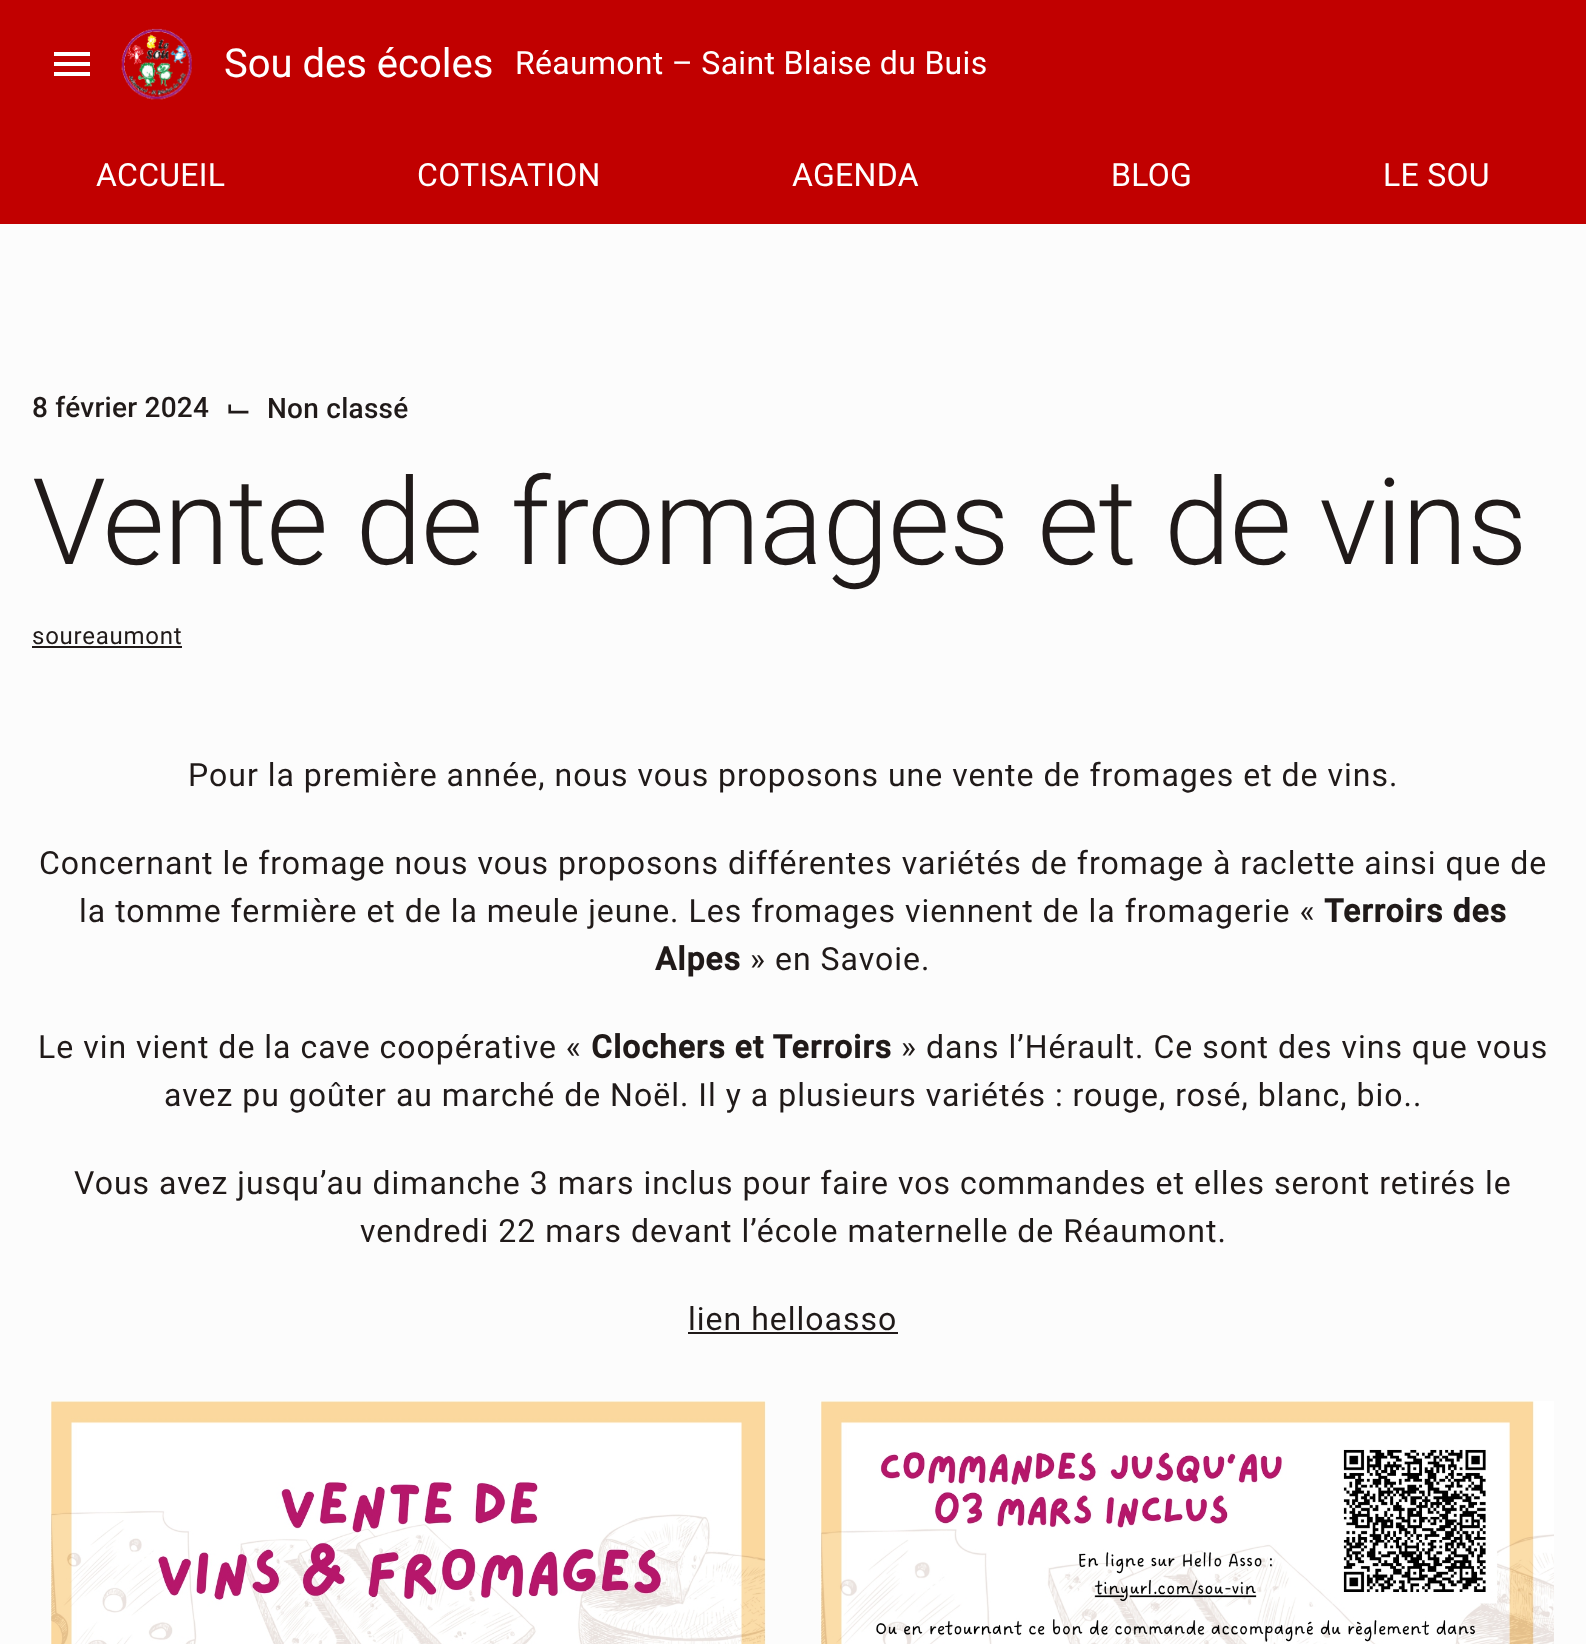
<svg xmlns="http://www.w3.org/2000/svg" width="1586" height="1644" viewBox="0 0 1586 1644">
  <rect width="100%" height="100%" fill="#fcfcfc"/>
  <rect x="0" y="0" width="1586" height="224" fill="#c10000"/>
  <path d="M54 52H90V56H54ZM54 66V62H90V66ZM54 76V72H90V76Z" fill="#ffffff"/>
  <image x="121" y="28" width="71" height="72" href="img1.png"/>
  <text x="224" y="77" font-family="Roboto" font-size="40" fill="#ffffff">Sou des écoles</text>
  <text x="515" y="74" font-family="Roboto" font-size="32" letter-spacing="0.3" fill="#ffffff">Réaumont – Saint Blaise du Buis</text>
  <text x="96" y="186" font-family="Roboto" font-size="32" letter-spacing="0.3" fill="#ffffff">ACCUEIL</text>
  <text x="417" y="186" font-family="Roboto" font-size="32" letter-spacing="0.3" fill="#ffffff">COTISATION</text>
  <text x="792" y="186" font-family="Roboto" font-size="32" letter-spacing="0.3" fill="#ffffff">AGENDA</text>
  <text x="1111" y="186" font-family="Roboto" font-size="32" letter-spacing="0.3" fill="#ffffff">BLOG</text>
  <text x="1383" y="186" font-family="Roboto" font-size="32" letter-spacing="0.3" fill="#ffffff">LE SOU</text>
  <text x="32" y="417" font-family="Roboto" font-size="28" font-weight="500" letter-spacing="0.25" fill="#201a19">8 février 2024</text>
  <text x="225" y="418" font-family="DejaVu Sans" font-size="32" fill="#201a19">⌙</text>
  <text x="267" y="418" font-family="Roboto" font-size="28" font-weight="500" letter-spacing="0.25" fill="#201a19">Non classé</text>
  <text x="32" y="564" font-family="Roboto" font-size="120" font-weight="300" letter-spacing="-1" fill="#201a19">Vente de fromages et de vins</text>
  <text x="32" y="644" font-family="Roboto" font-size="24" letter-spacing="0.75" fill="#201a19">soureaumont</text>
  <rect x="32" y="646" width="150" height="2" fill="#201a19"/>
  <text x="188" y="786" font-family="Roboto" font-size="32" letter-spacing="1" fill="#201a19">Pour la première année, nous vous proposons une vente de fromages et de vins.</text>
  <text x="39" y="874" font-family="Roboto" font-size="32" letter-spacing="1" fill="#201a19">Concernant le fromage nous vous proposons différentes variétés de fromage à raclette ainsi que de</text>
  <text x="79" y="922" font-family="Roboto" font-size="32" letter-spacing="1" fill="#201a19">la tomme fermière et de la meule jeune. Les fromages viennent de la fromagerie «</text>
  <text x="1324" y="922" font-family="Roboto" font-size="32" font-weight="bold" letter-spacing="1" fill="#201a19">Terroirs des</text>
  <text x="655" y="970" font-family="Roboto" font-size="32" font-weight="bold" letter-spacing="1" fill="#201a19">Alpes</text>
  <text x="750" y="970" font-family="Roboto" font-size="32" letter-spacing="1" fill="#201a19">» en Savoie.</text>
  <text x="38" y="1058" font-family="Roboto" font-size="32" letter-spacing="1" fill="#201a19">Le vin vient de la cave coopérative «</text>
  <text x="591" y="1058" font-family="Roboto" font-size="32" font-weight="bold" letter-spacing="1" fill="#201a19">Clochers et Terroirs</text>
  <text x="901" y="1058" font-family="Roboto" font-size="32" letter-spacing="1" fill="#201a19">» dans l’Hérault. Ce sont des vins que vous</text>
  <text x="164" y="1106" font-family="Roboto" font-size="32" letter-spacing="1" fill="#201a19">avez pu goûter au marché de Noël. Il y a plusieurs variétés : rouge, rosé, blanc, bio..</text>
  <text x="74" y="1194" font-family="Roboto" font-size="32" letter-spacing="1" fill="#201a19">Vous avez jusqu’au dimanche 3 mars inclus pour faire vos commandes et elles seront retirés le</text>
  <text x="360" y="1242" font-family="Roboto" font-size="32" letter-spacing="1" fill="#201a19">vendredi 22 mars devant l’école maternelle de Réaumont.</text>
  <text x="688" y="1330" font-family="Roboto" font-size="32" letter-spacing="1" fill="#201a19">lien helloasso</text>
  <rect x="688" y="1332" width="210" height="2" fill="#201a19"/>
  <image x="50" y="1401" width="716" height="243" href="img2.png"/>
  <image x="820" y="1401" width="734" height="243" href="img3.png"/>
</svg>
